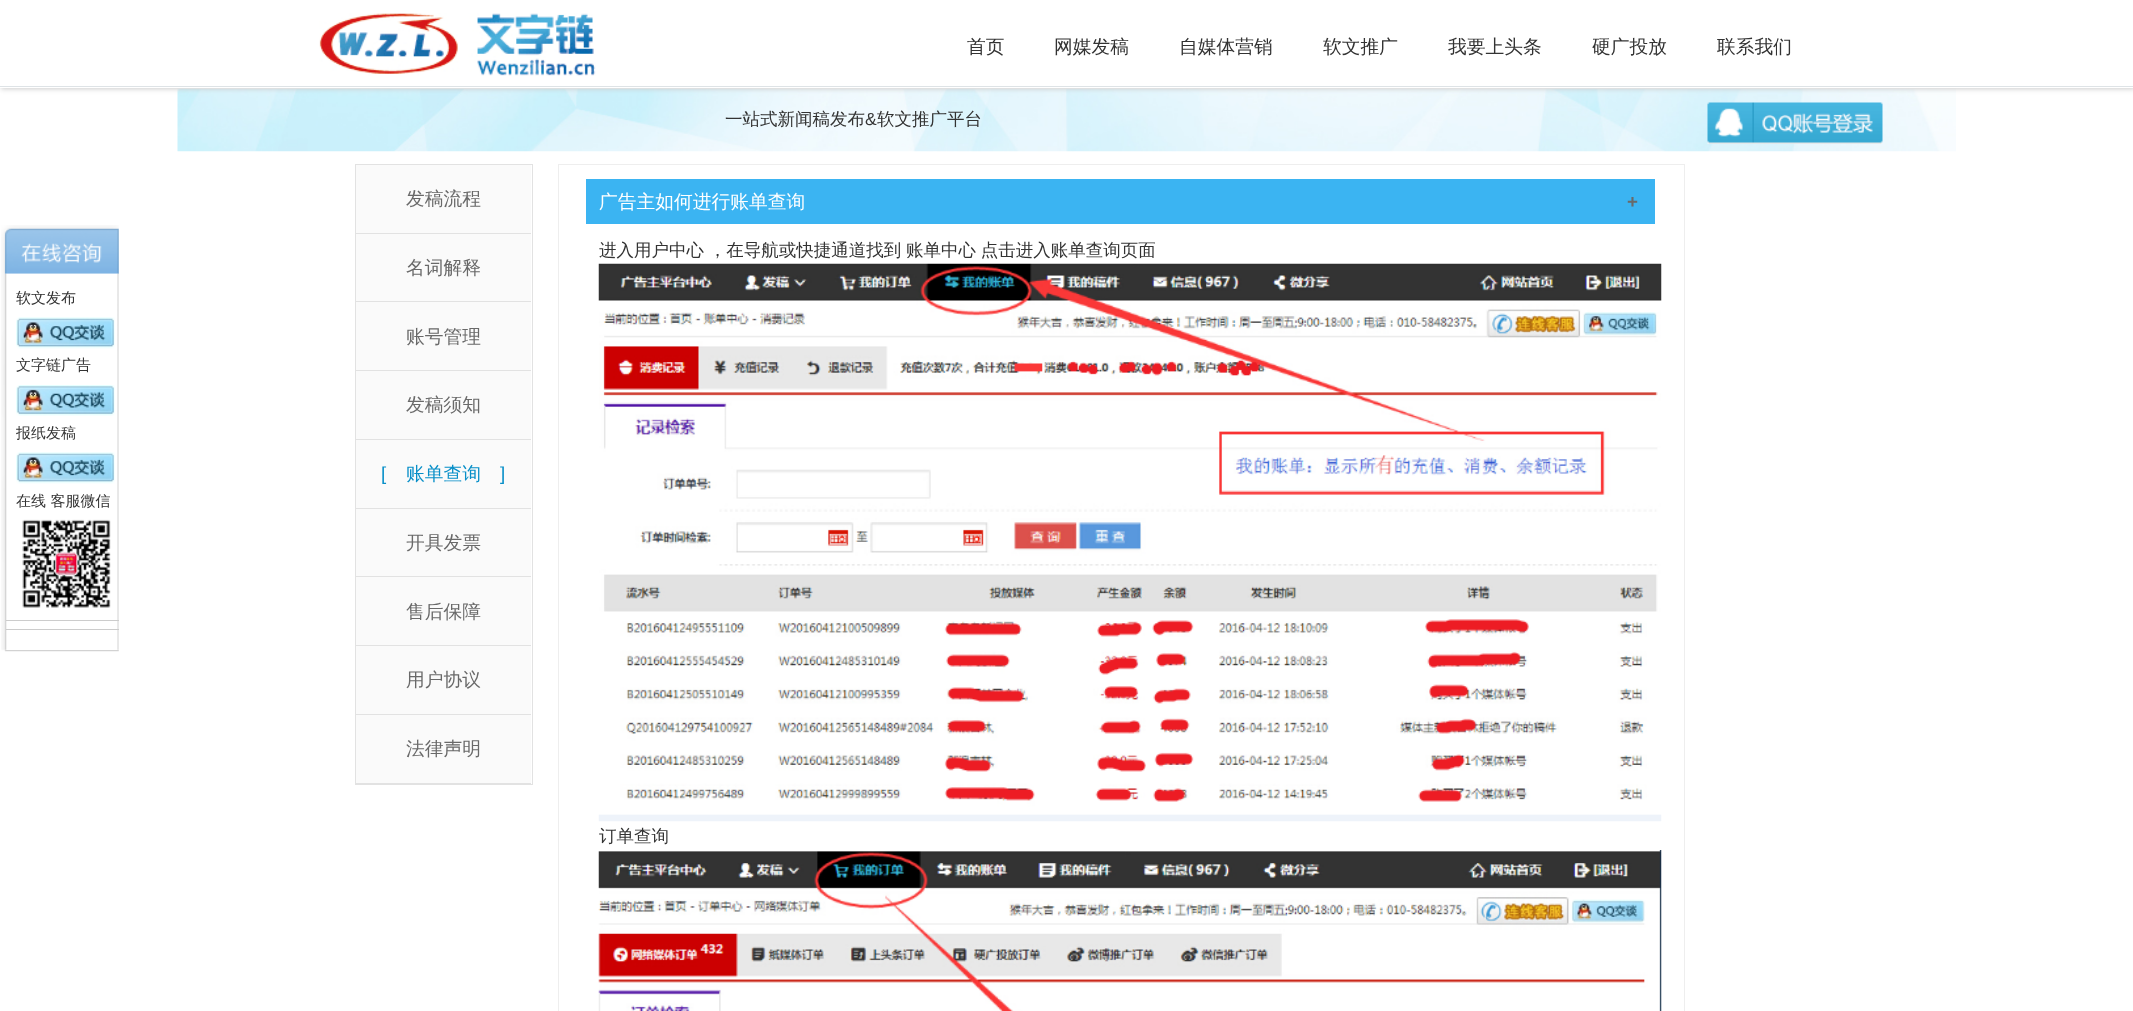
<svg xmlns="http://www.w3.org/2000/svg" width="2133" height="1011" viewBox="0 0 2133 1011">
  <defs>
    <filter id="blur1" x="-50%" y="-200%" width="200%" height="500%"><feGaussianBlur stdDeviation="2.5"/></filter>
  </defs>
  <rect width="100%" height="100%" fill="#ffffff"/>
  <image x="177" y="88" width="1779" height="64" href="img2.png"/>
  <rect x="1" y="1" width="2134" height="88" fill="#cccccc" filter="url(#blur1)"/>
  <rect x="0" y="0" width="2133" height="88" fill="#ffffff"/>
  <rect x="0" y="86" width="2133" height="1" fill="#dee3e6"/>
  <image x="319" y="13" width="277" height="63" href="img1.png"/>
  <text x="967" y="53" font-family="WenQuanYi Zen Hei" font-size="18.75" font-weight="500" fill="#333333">首页</text>
  <text x="1054" y="53" font-family="WenQuanYi Zen Hei" font-size="18.75" font-weight="500" fill="#333333">网媒发稿</text>
  <text x="1179" y="53" font-family="WenQuanYi Zen Hei" font-size="18.75" font-weight="500" fill="#333333">自媒体营销</text>
  <text x="1323" y="53" font-family="WenQuanYi Zen Hei" font-size="18.75" font-weight="500" fill="#333333">软文推广</text>
  <text x="1448" y="53" font-family="WenQuanYi Zen Hei" font-size="18.75" font-weight="500" fill="#333333">我要上头条</text>
  <text x="1592" y="53" font-family="WenQuanYi Zen Hei" font-size="18.75" font-weight="500" fill="#333333">硬广投放</text>
  <text x="1717" y="53" font-family="WenQuanYi Zen Hei" font-size="18.75" font-weight="500" fill="#333333">联系我们</text>
  <text x="725" y="125" font-family="WenQuanYi Zen Hei" font-size="17.5" font-weight="500" fill="#333333">一站式新闻稿发布</text>
  <text x="865" y="125" font-family="Liberation Sans" font-size="17.5" fill="#333333">&amp;</text>
  <text x="877" y="125" font-family="WenQuanYi Zen Hei" font-size="17.5" font-weight="500" fill="#333333">软文推广平台</text>
  <image x="1707" y="102" width="176" height="42" href="img3.png"/>
  <image x="1" y="225" width="118" height="49" href="img4.png"/>
  <image x="1" y="273" width="118" height="378" href="img5.png"/>
  <text x="16" y="303" font-family="WenQuanYi Zen Hei" font-size="15" font-weight="500" fill="#333333">软文发布</text>
  <image x="16" y="317" width="99" height="32" href="img6.png"/>
  <text x="16" y="370" font-family="WenQuanYi Zen Hei" font-size="15" font-weight="500" fill="#333333">文字链广告</text>
  <image x="16" y="385" width="99" height="31" href="img7.png"/>
  <text x="16" y="438" font-family="WenQuanYi Zen Hei" font-size="15" font-weight="500" fill="#333333">报纸发稿</text>
  <image x="16" y="452" width="99" height="32" href="img6.png"/>
  <text x="16" y="506" font-family="WenQuanYi Zen Hei" font-size="15" font-weight="500" fill="#333333">在线 客服微信</text>
  <image x="22" y="519" width="89" height="89" href="img8.png"/>
  <rect x="6" y="620" width="113" height="1" fill="#cccccc"/>
  <rect x="6" y="629" width="113" height="1" fill="#cccccc"/>
  <image x="4" y="650" width="115" height="2" href="img9.png"/>
  <rect x="355.5" y="164.5" width="177" height="620" fill="none" stroke="#e2e2e2"/>
  <rect x="356" y="165" width="175" height="68" fill="#fafafa"/>
  <rect x="356" y="233" width="175" height="1" fill="#e2e2e2"/>
  <text x="406" y="205" font-family="WenQuanYi Zen Hei" font-size="18.75" font-weight="500" fill="#696969">发稿流程</text>
  <rect x="356" y="234" width="175" height="136" fill="#fafafa"/>
  <rect x="356" y="301" width="175" height="1" fill="#e2e2e2"/>
  <text x="406" y="274" font-family="WenQuanYi Zen Hei" font-size="18.75" font-weight="500" fill="#696969">名词解释</text>
  <rect x="356" y="370" width="175" height="1" fill="#e2e2e2"/>
  <text x="406" y="343" font-family="WenQuanYi Zen Hei" font-size="18.75" font-weight="500" fill="#696969">账号管理</text>
  <rect x="356" y="371" width="175" height="68" fill="#fafafa"/>
  <rect x="356" y="439" width="175" height="1" fill="#e2e2e2"/>
  <text x="406" y="411" font-family="WenQuanYi Zen Hei" font-size="18.75" font-weight="500" fill="#696969">发稿须知</text>
  <rect x="356" y="440" width="175" height="68" fill="#fafafa"/>
  <rect x="356" y="508" width="175" height="1" fill="#e2e2e2"/>
  <text x="381" y="480" font-family="Liberation Sans" font-size="18.75" fill="#088fc8">[</text>
  <text x="406" y="480" font-family="WenQuanYi Zen Hei" font-size="18.75" font-weight="500" fill="#088fc8">账单查询</text>
  <text x="500" y="480" font-family="Liberation Sans" font-size="18.75" fill="#088fc8">]</text>
  <rect x="356" y="509" width="175" height="136" fill="#fafafa"/>
  <rect x="356" y="576" width="175" height="1" fill="#e2e2e2"/>
  <text x="406" y="549" font-family="WenQuanYi Zen Hei" font-size="18.75" font-weight="500" fill="#696969">开具发票</text>
  <rect x="356" y="645" width="175" height="1" fill="#e2e2e2"/>
  <text x="406" y="618" font-family="WenQuanYi Zen Hei" font-size="18.75" font-weight="500" fill="#696969">售后保障</text>
  <rect x="356" y="646" width="175" height="68" fill="#fafafa"/>
  <rect x="356" y="714" width="175" height="1" fill="#e2e2e2"/>
  <text x="406" y="686" font-family="WenQuanYi Zen Hei" font-size="18.75" font-weight="500" fill="#696969">用户协议</text>
  <rect x="356" y="715" width="175" height="68" fill="#fafafa"/>
  <rect x="356" y="783" width="175" height="1" fill="#e2e2e2"/>
  <text x="406" y="755" font-family="WenQuanYi Zen Hei" font-size="18.75" font-weight="500" fill="#696969">法律声明</text>
  <rect x="558.5" y="164.5" width="1126" height="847" fill="none" stroke="#eeeeee"/>
  <rect x="586" y="179" width="1069" height="45" fill="#3bb4f2"/>
  <text x="599" y="208" font-family="WenQuanYi Zen Hei" font-size="18.75" font-weight="500" fill="#ffffff">广告主如何进行账单查询</text>
  <text x="1627" y="208" font-family="Liberation Sans" font-size="18.75" font-weight="bold" fill="#696969">+</text>
  <text x="599" y="256" word-spacing="-0.5" font-family="WenQuanYi Zen Hei" font-size="17.5" font-weight="500" fill="#333333">进入用户中心 ，在导航或快捷通道找到 账单中心 点击进入账单查询页面</text>
  <image x="598" y="263" width="1064" height="559" href="img10.png"/>
  <text x="599" y="842" font-family="WenQuanYi Zen Hei" font-size="17.5" font-weight="500" fill="#333333">订单查询</text>
  <image x="598" y="850" width="1064" height="161" href="img11.png"/>
</svg>
